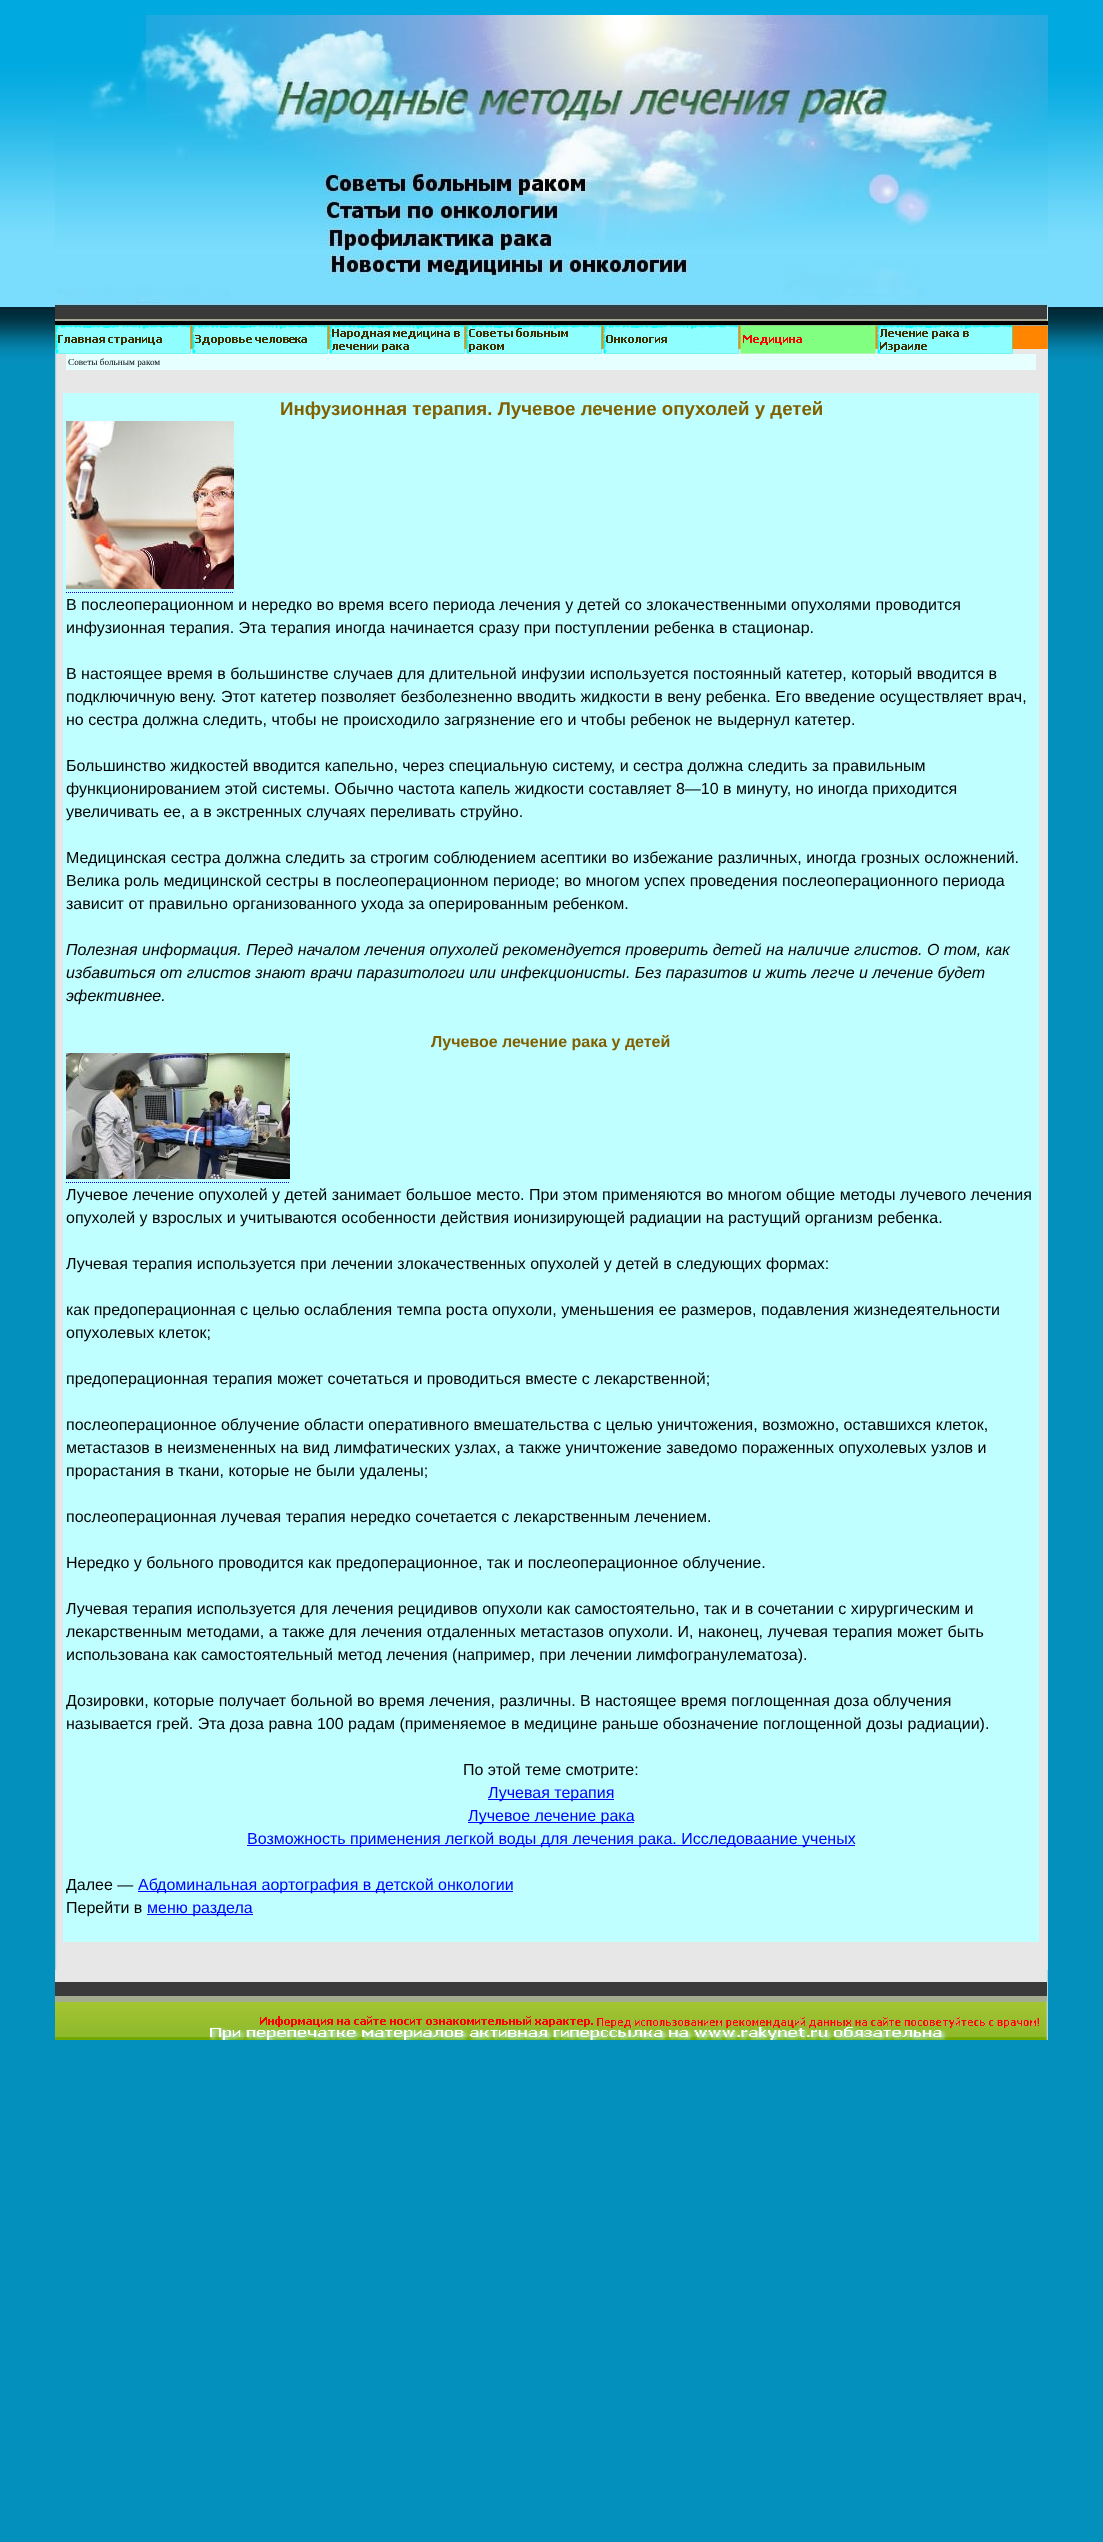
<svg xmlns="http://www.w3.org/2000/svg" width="1103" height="2542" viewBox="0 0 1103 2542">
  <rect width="100%" height="100%" fill="#ffffff"/>
  <image x="0" y="0" width="1103" height="2542" href="img1.png"/>
  <image x="55" y="15" width="993" height="310" href="img2.png"/>
  <image x="55" y="325" width="993" height="24" href="img3.png"/>
  <image x="55" y="349" width="993" height="1621" href="img11.png"/>
  <image x="55" y="325" width="136" height="29" href="img4.png"/>
  <image x="192" y="325" width="136" height="29" href="img5.png"/>
  <image x="329" y="325" width="136" height="29" href="img6.png"/>
  <image x="466" y="325" width="136" height="29" href="img7.png"/>
  <image x="603" y="325" width="136" height="29" href="img8.png"/>
  <image x="740" y="325" width="136" height="29" href="img9.png"/>
  <image x="877" y="325" width="136" height="29" href="img10.png"/>
  <rect x="66" y="354" width="970" height="16" fill="#e6ffff"/>
  <text x="68" y="365" font-family="Liberation Serif" font-size="9.25" fill="#000000">Советы больным раком</text>
  <rect x="63" y="393" width="976" height="1549" fill="#bfffff"/>
  <text x="280" y="415" font-family="Liberation Sans" font-size="18.7" font-weight="bold" fill="#806000">Инфузионная терапия. Лучевое лечение опухолей у детей</text>
  <path d="M66 592.5H234" fill="none" stroke="#0000ff" stroke-dasharray="1 1"/>
  <image x="66" y="421" width="168" height="168" href="img12.png"/>
  <text x="66" y="610" font-family="Liberation Sans" font-size="16" fill="#000000">В послеоперационном и нередко во время всего периода лечения у детей со злокачественными опухолями проводится</text>
  <text x="66" y="633" font-family="Liberation Sans" font-size="16" fill="#000000">инфузионная терапия. Эта терапия иногда начинается сразу при поступлении ребенка в стационар.</text>
  <text x="66" y="679" font-family="Liberation Sans" font-size="16" fill="#000000">В настоящее время в большинстве случаев для длительной инфузии используется постоянный катетер, который вводится в</text>
  <text x="66" y="702" font-family="Liberation Sans" font-size="16" fill="#000000">подключичную вену. Этот катетер позволяет безболезненно вводить жидкости в вену ребенка. Его введение осуществляет врач,</text>
  <text x="66" y="725" font-family="Liberation Sans" font-size="16" fill="#000000">но сестра должна следить, чтобы не происходило загрязнение его и чтобы ребенок не выдернул катетер.</text>
  <text x="66" y="771" font-family="Liberation Sans" font-size="16" fill="#000000">Большинство жидкостей вводится капельно, через специальную систему, и сестра должна следить за правильным</text>
  <text x="66" y="794" font-family="Liberation Sans" font-size="16" fill="#000000">функционированием этой системы. Обычно частота капель жидкости составляет 8—10 в минуту, но иногда приходится</text>
  <text x="66" y="817" font-family="Liberation Sans" font-size="16" fill="#000000">увеличивать ее, а в экстренных случаях переливать струйно.</text>
  <text x="66" y="863" font-family="Liberation Sans" font-size="16" fill="#000000">Медицинская сестра должна следить за строгим соблюдением асептики во избежание различных, иногда грозных осложнений.</text>
  <text x="66" y="886" font-family="Liberation Sans" font-size="16" fill="#000000">Велика роль медицинской сестры в послеоперационном периоде; во многом успех проведения послеоперационного периода</text>
  <text x="66" y="909" font-family="Liberation Sans" font-size="16" fill="#000000">зависит от правильно организованного ухода за оперированным ребенком.</text>
  <text x="66" y="955" font-family="Liberation Sans" font-size="16" font-style="italic" fill="#000000">Полезная информация. Перед началом лечения опухолей рекомендуется проверить детей на наличие глистов. О том, как</text>
  <text x="66" y="978" font-family="Liberation Sans" font-size="16" font-style="italic" fill="#000000">избавиться от глистов знают врачи паразитологи или инфекционисты. Без паразитов и жить легче и лечение будет</text>
  <text x="66" y="1001" font-family="Liberation Sans" font-size="16" font-style="italic" fill="#000000">эфективнее.</text>
  <text x="431" y="1047" font-family="Liberation Sans" font-size="16" font-weight="bold" fill="#806000">Лучевое лечение рака у детей</text>
  <path d="M66 1182.5H290" fill="none" stroke="#0000ff" stroke-dasharray="1 1"/>
  <image x="66" y="1053" width="224" height="126" href="img13.png"/>
  <text x="66" y="1200" font-family="Liberation Sans" font-size="16" fill="#000000">Лучевое лечение опухолей у детей занимает большое место. При этом применяются во многом общие методы лучевого лечения</text>
  <text x="66" y="1223" font-family="Liberation Sans" font-size="16" fill="#000000">опухолей у взрослых и учитываются особенности действия ионизирующей радиации на растущий организм ребенка.</text>
  <text x="66" y="1269" font-family="Liberation Sans" font-size="16" fill="#000000">Лучевая терапия используется при лечении злокачественных опухолей у детей в следующих формах:</text>
  <text x="66" y="1315" font-family="Liberation Sans" font-size="16" fill="#000000">как предоперационная с целью ослабления темпа роста опухоли, уменьшения ее размеров, подавления жизнедеятельности</text>
  <text x="66" y="1338" font-family="Liberation Sans" font-size="16" fill="#000000">опухолевых клеток;</text>
  <text x="66" y="1384" font-family="Liberation Sans" font-size="16" fill="#000000">предоперационная терапия может сочетаться и проводиться вместе с лекарственной;</text>
  <text x="66" y="1430" font-family="Liberation Sans" font-size="16" fill="#000000">послеоперационное облучение области оперативного вмешательства с целью уничтожения, возможно, оставшихся клеток,</text>
  <text x="66" y="1453" font-family="Liberation Sans" font-size="16" fill="#000000">метастазов в неизмененных на вид лимфатических узлах, а также уничтожение заведомо пораженных опухолевых узлов и</text>
  <text x="66" y="1476" font-family="Liberation Sans" font-size="16" fill="#000000">прорастания в ткани, которые не были удалены;</text>
  <text x="66" y="1522" font-family="Liberation Sans" font-size="16" fill="#000000">послеоперационная лучевая терапия нередко сочетается с лекарственным лечением.</text>
  <text x="66" y="1568" font-family="Liberation Sans" font-size="16" fill="#000000">Нередко у больного проводится как предоперационное, так и послеоперационное облучение.</text>
  <text x="66" y="1614" font-family="Liberation Sans" font-size="16" fill="#000000">Лучевая терапия используется для лечения рецидивов опухоли как самостоятельно, так и в сочетании с хирургическим и</text>
  <text x="66" y="1637" font-family="Liberation Sans" font-size="16" fill="#000000">лекарственным методами, а также для лечения отдаленных метастазов опухоли. И, наконец, лучевая терапия может быть</text>
  <text x="66" y="1660" font-family="Liberation Sans" font-size="16" fill="#000000">использована как самостоятельный метод лечения (например, при лечении лимфогранулематоза).</text>
  <text x="66" y="1706" font-family="Liberation Sans" font-size="16" fill="#000000">Дозировки, которые получает больной во время лечения, различны. В настоящее время поглощенная доза облучения</text>
  <text x="66" y="1729" font-family="Liberation Sans" font-size="16" fill="#000000">называется грей. Эта доза равна 100 радам (применяемое в медицине раньше обозначение поглощенной дозы радиации).</text>
  <text x="463" y="1775" font-family="Liberation Sans" font-size="16" fill="#000000">По этой теме смотрите:</text>
  <rect x="488" y="1799" width="126" height="1" fill="#0000ff"/>
  <text x="488" y="1798" font-family="Liberation Sans" font-size="16" fill="#0000ff">Лучевая терапия</text>
  <rect x="468" y="1822" width="166" height="1" fill="#0000ff"/>
  <text x="468" y="1821" font-family="Liberation Sans" font-size="16" fill="#0000ff">Лучевое лечение рака</text>
  <rect x="247" y="1845" width="608" height="1" fill="#0000ff"/>
  <text x="247" y="1844" font-family="Liberation Sans" font-size="16" fill="#0000ff">Возможность применения легкой воды для лечения рака. Исследоваание ученых</text>
  <text x="66" y="1890" font-family="Liberation Sans" font-size="16" fill="#000000">Далее —</text>
  <rect x="138" y="1891" width="375" height="1" fill="#0000ff"/>
  <text x="138" y="1890" font-family="Liberation Sans" font-size="16" fill="#0000ff">Абдоминальная аортография в детской онкологии</text>
  <text x="66" y="1913" font-family="Liberation Sans" font-size="16" fill="#000000">Перейти в</text>
  <rect x="147" y="1914" width="106" height="1" fill="#0000ff"/>
  <text x="147" y="1913" font-family="Liberation Sans" font-size="16" fill="#0000ff">меню раздела</text>
  <image x="55" y="1970" width="993" height="70" href="img14.png"/>
</svg>
